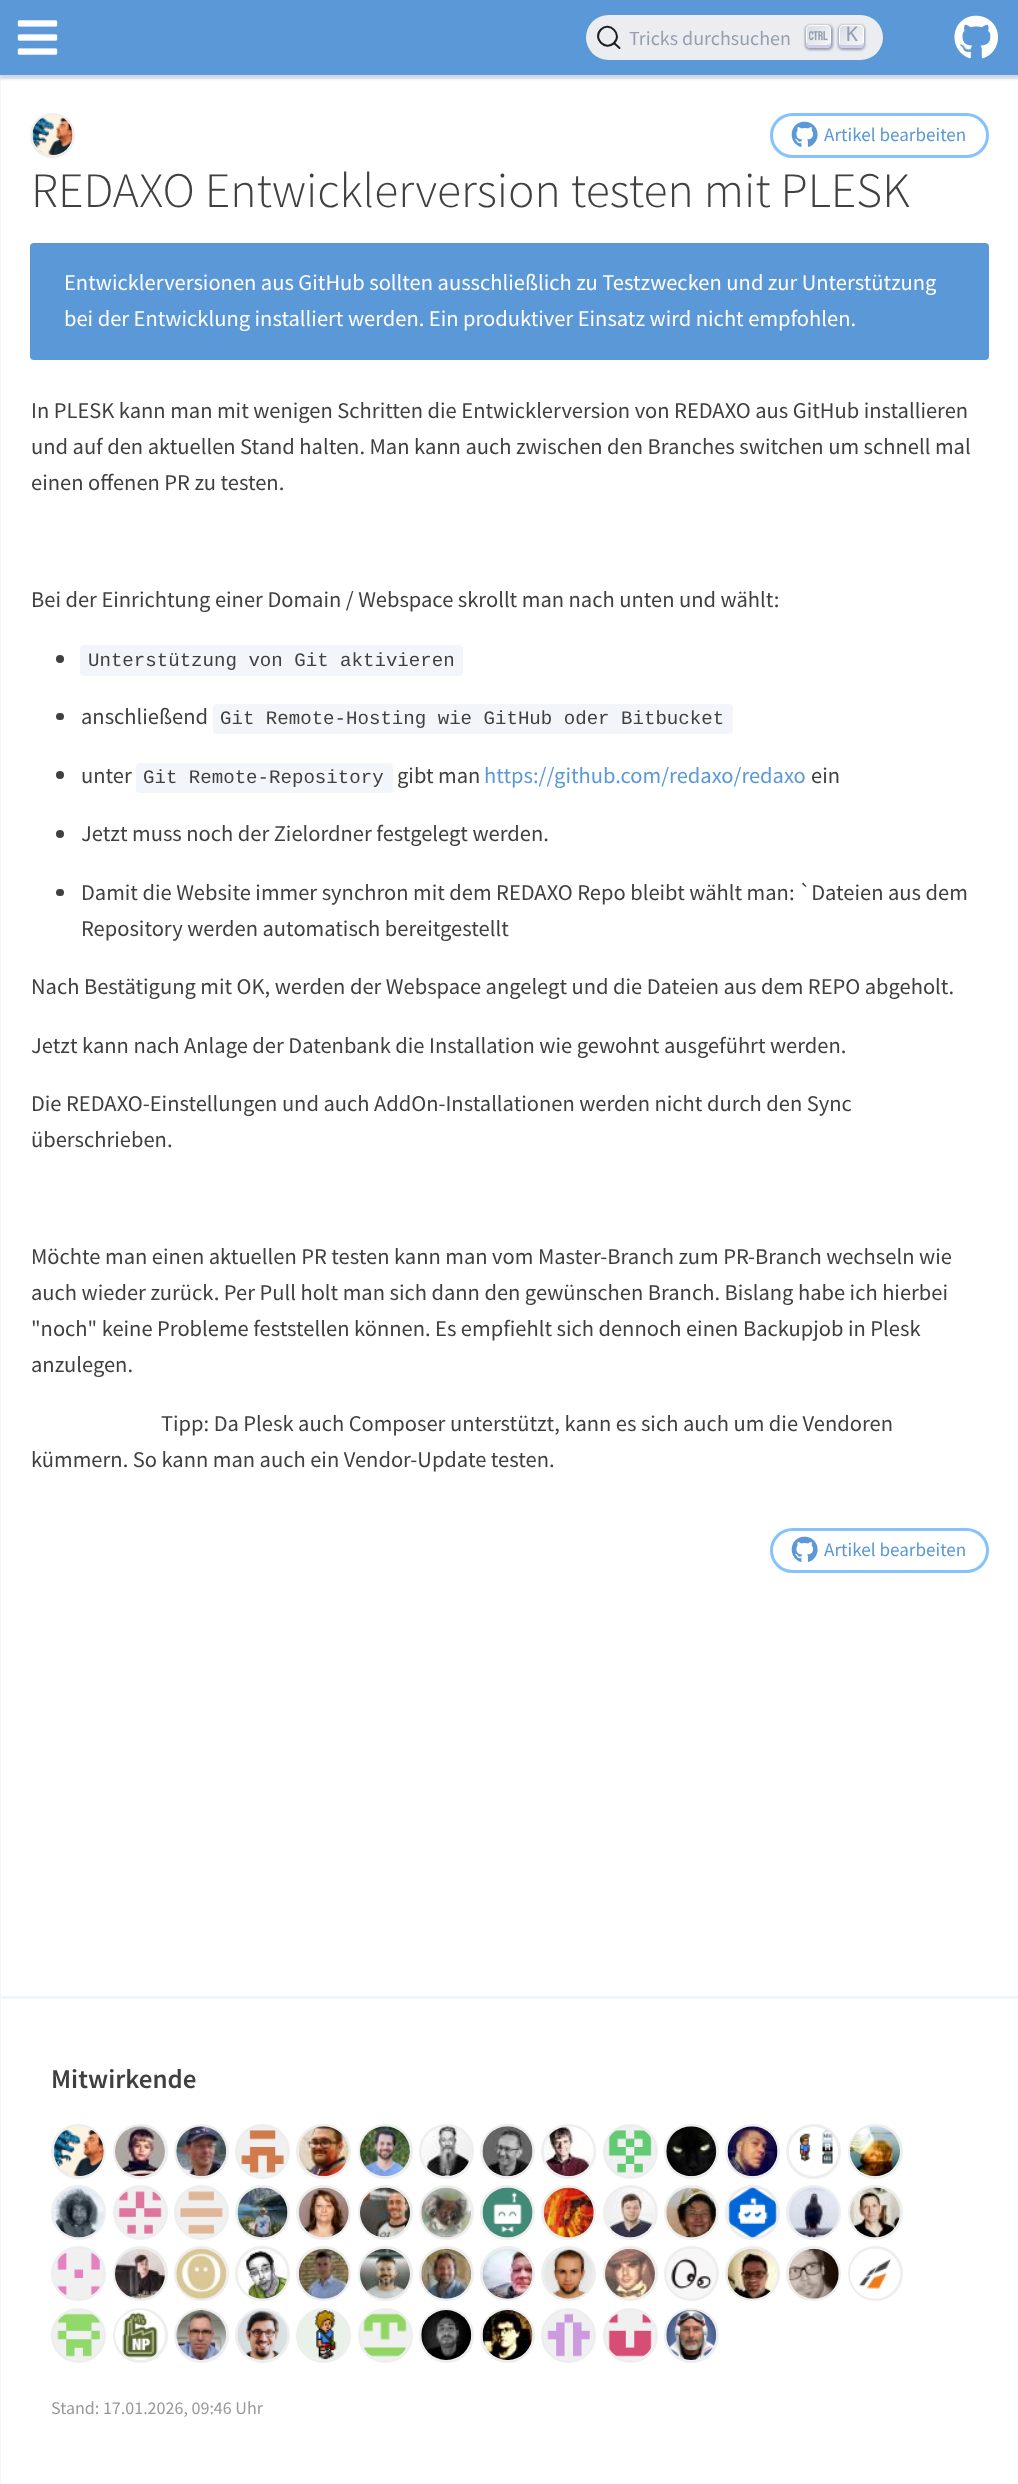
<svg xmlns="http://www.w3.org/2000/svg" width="1018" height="2484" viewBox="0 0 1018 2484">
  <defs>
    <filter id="blur1" x="-50%" y="-200%" width="200%" height="500%"><feGaussianBlur stdDeviation="1"/></filter>
    <linearGradient id="g1" gradientUnits="userSpaceOnUse" x1="807" y1="24" x2="831" y2="48"><stop offset="0" stop-color="#d5dbe4"/><stop offset="1" stop-color="#f8f8f8"/></linearGradient>
    <linearGradient id="g2" gradientUnits="userSpaceOnUse" x1="839" y1="24" x2="863" y2="48"><stop offset="0" stop-color="#d5dbe4"/><stop offset="1" stop-color="#f8f8f8"/></linearGradient>
  </defs>
  <rect width="100%" height="100%" fill="#ffffff"/>
  <rect x="0" y="1996" width="1018" height="3" fill="#f2f6fb"/>
  <rect x="0" y="75" width="1" height="2409" fill="#f2f6fb"/>
  <rect x="0" y="4" width="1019" height="75" fill="#466391" fill-opacity="0.25" filter="url(#blur1)"/>
  <rect x="0" y="0" width="1018" height="75" fill="#5b98d7"/>
  <image x="17" y="20" width="41" height="35" href="img1.png"/>
  <rect x="586" y="15" width="297" height="45" rx="22.5" fill="#ebedf0"/>
  <path d="M614 43L619.5 48L614 43C605.5 51.5 592 38.5 601 29.5C609.5 21 623 34.5 614 43Z" fill="none" stroke="#1c1e21" stroke-width="2" stroke-linecap="round" stroke-linejoin="round"/>
  <text x="629" y="45" font-family="Source Sans Pro" font-size="20" fill="#969faf">Tricks durchsuchen</text>
  <rect x="805" y="25" width="28" height="25" rx="5" fill="#1e235a" fill-opacity="0.4" filter="url(#blur1)"/>
  <rect x="806.5" y="25.5" width="24" height="22" rx="3.5" fill="url(#g1)" stroke="#ffffff"/>
  <path d="M831 42C830.5 44 829 45 825 45H810C807 45 806 42.5 806 39.5V44C806 46 808 48 810 48H827C829 48 831 46 831 44Z" fill="#cdcde6"/>
  <image x="809" y="31" width="19" height="10" href="img2.png"/>
  <rect x="838" y="25" width="27" height="25" rx="5" fill="#1e235a" fill-opacity="0.4" filter="url(#blur1)"/>
  <rect x="839.5" y="25.5" width="24" height="22" rx="3.5" fill="url(#g2)" stroke="#ffffff"/>
  <path d="M864 41.5C863.5 44 862 45 857 45H842C840.5 45 839.5 44 839 43C839 48 841.5 48 846 48H857C863 48 864 47.5 864 41.5Z" fill="#cdcde6"/>
  <text x="846" y="41" font-family="DejaVu Sans Mono" font-size="20" fill="#969faf">K</text>
  <image x="954" y="15" width="44" height="44" href="img3.png"/>
  <circle cx="52.5" cy="135.5" r="21" fill="none" stroke="#eeeeee" stroke-width="3"/>
  <image x="32" y="115" width="41" height="40" href="img4.png"/>
  <rect x="771.5" y="114.5" width="216" height="42" rx="21" fill="none" stroke="#85c2ff" stroke-width="3"/>
  <image x="791" y="121" width="27" height="26" href="img5.png"/>
  <text x="824" y="141" font-family="Source Sans Pro" font-size="19.1" fill="#5b98d7">Artikel bearbeiten</text>
  <text x="31" y="207" font-family="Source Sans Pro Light" font-size="49.5" font-weight="300" fill="#404040">REDAXO Entwicklerversion testen mit PLESK</text>
  <rect x="30" y="243" width="959" height="117" rx="4" fill="#5b98d7"/>
  <text x="64" y="290" font-family="Source Sans Pro" font-size="22.5" fill="#ffffff">Entwicklerversionen aus GitHub sollten ausschließlich zu Testzwecken und zur Unterstützung</text>
  <text x="64" y="326" font-family="Source Sans Pro" font-size="22.5" fill="#ffffff">bei der Entwicklung installiert werden. Ein produktiver Einsatz wird nicht empfohlen.</text>
  <text x="31" y="418" font-family="Source Sans Pro" font-size="22.5" fill="#404040">In PLESK kann man mit wenigen Schritten die Entwicklerversion von REDAXO aus GitHub installieren</text>
  <text x="31" y="454" font-family="Source Sans Pro" font-size="22.5" fill="#404040">und auf den aktuellen Stand halten. Man kann auch zwischen den Branches switchen um schnell mal</text>
  <text x="31" y="490" font-family="Source Sans Pro" font-size="22.5" fill="#404040">einen offenen PR zu testen.</text>
  <text x="31" y="607" font-family="Source Sans Pro" font-size="22.5" fill="#404040">Bei der Einrichtung einer Domain / Webspace skrollt man nach unten und wählt:</text>
  <circle cx="60" cy="659" r="4" fill="#404040"/>
  <rect x="80" y="645" width="383" height="31" rx="4" fill="#f2f6fb"/>
  <text x="88" y="666" font-family="Liberation Mono" font-size="19.1" fill="#404040">Unterstützung von Git aktivieren</text>
  <rect x="56" y="713" width="8" height="7" rx="3.5" fill="#404040"/>
  <text x="81" y="724" font-family="Source Sans Pro" font-size="22.5" fill="#404040">anschließend</text>
  <rect x="213" y="704" width="520" height="30" rx="4" fill="#f2f6fb"/>
  <text x="220" y="724" font-family="Liberation Mono" font-size="19.1" fill="#404040">Git Remote-Hosting wie GitHub oder Bitbucket</text>
  <circle cx="60" cy="775" r="4" fill="#404040"/>
  <text x="81" y="783" font-family="Source Sans Pro" font-size="22.5" fill="#404040">unter</text>
  <rect x="136" y="763" width="257" height="30" rx="4" fill="#f2f6fb"/>
  <text x="143" y="783" font-family="Liberation Mono" font-size="19.1" fill="#404040">Git Remote-Repository</text>
  <text x="397" y="783" font-family="Source Sans Pro" font-size="22.5" fill="#404040">gibt man</text>
  <text x="484" y="783" font-family="Source Sans Pro" font-size="22.5" fill="#5b98d7">https://github.com/redaxo/redaxo</text>
  <text x="811" y="783" font-family="Source Sans Pro" font-size="22.5" fill="#404040">ein</text>
  <circle cx="60" cy="834" r="4" fill="#404040"/>
  <text x="81" y="841" font-family="Source Sans Pro" font-size="22.5" fill="#404040">Jetzt muss noch der Zielordner festgelegt werden.</text>
  <rect x="56" y="889" width="8" height="7" rx="3.5" fill="#404040"/>
  <text x="81" y="900" font-family="Source Sans Pro" font-size="22.5" fill="#404040">Damit die Website immer synchron mit dem REDAXO Repo bleibt wählt man: `Dateien aus dem</text>
  <text x="81" y="936" font-family="Source Sans Pro" font-size="22.5" fill="#404040">Repository werden automatisch bereitgestellt</text>
  <text x="31" y="994" font-family="Source Sans Pro" font-size="22.5" fill="#404040">Nach Bestätigung mit OK, werden der Webspace angelegt und die Dateien aus dem REPO abgeholt.</text>
  <text x="31" y="1053" font-family="Source Sans Pro" font-size="22.5" fill="#404040">Jetzt kann nach Anlage der Datenbank die Installation wie gewohnt ausgeführt werden.</text>
  <text x="31" y="1111" font-family="Source Sans Pro" font-size="22.5" fill="#404040">Die REDAXO-Einstellungen und auch AddOn-Installationen werden nicht durch den Sync</text>
  <text x="31" y="1147" font-family="Source Sans Pro" font-size="22.5" fill="#404040">überschrieben.</text>
  <text x="31" y="1264" font-family="Source Sans Pro" font-size="22.5" fill="#404040">Möchte man einen aktuellen PR testen kann man vom Master-Branch zum PR-Branch wechseln wie</text>
  <text x="31" y="1300" font-family="Source Sans Pro" font-size="22.5" fill="#404040">auch wieder zurück. Per Pull holt man sich dann den gewünschen Branch. Bislang habe ich hierbei</text>
  <text x="31" y="1336" font-family="Source Sans Pro" font-size="22.5" fill="#404040">"noch" keine Probleme feststellen können. Es empfiehlt sich dennoch einen Backupjob in Plesk</text>
  <text x="31" y="1372" font-family="Source Sans Pro" font-size="22.5" fill="#404040">anzulegen.</text>
  <text x="161" y="1431" font-family="Source Sans Pro" font-size="22.5" fill="#404040">Tipp: Da Plesk auch Composer unterstützt, kann es sich auch um die Vendoren</text>
  <text x="31" y="1467" font-family="Source Sans Pro" font-size="22.5" fill="#404040">kümmern. So kann man auch ein Vendor-Update testen.</text>
  <rect x="771.5" y="1529.5" width="216" height="42" rx="21" fill="none" stroke="#85c2ff" stroke-width="3"/>
  <image x="791" y="1536" width="27" height="26" href="img5.png"/>
  <text x="824" y="1556" font-family="Source Sans Pro" font-size="19.1" fill="#5b98d7">Artikel bearbeiten</text>
  <text x="51" y="2088" font-family="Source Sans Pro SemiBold" font-size="27" font-weight="600" fill="#404040">Mitwirkende</text>
  <circle cx="78.5" cy="2151.5" r="26" fill="none" stroke="#eeeeee" stroke-width="3"/>
  <image x="53" y="2126" width="51" height="51" href="img6.png"/>
  <circle cx="140.5" cy="2151.5" r="26" fill="none" stroke="#eeeeee" stroke-width="3"/>
  <image x="115" y="2126" width="50" height="51" href="img7.png"/>
  <circle cx="201.5" cy="2151.5" r="26" fill="none" stroke="#eeeeee" stroke-width="3"/>
  <image x="176" y="2126" width="51" height="51" href="img8.png"/>
  <circle cx="262.5" cy="2151.5" r="26" fill="none" stroke="#eeeeee" stroke-width="3"/>
  <image x="238" y="2127" width="49" height="49" href="img9.png"/>
  <circle cx="323.5" cy="2151.5" r="26" fill="none" stroke="#eeeeee" stroke-width="3"/>
  <image x="299" y="2126" width="50" height="51" href="img10.png"/>
  <circle cx="385.5" cy="2151.5" r="26" fill="none" stroke="#eeeeee" stroke-width="3"/>
  <image x="360" y="2126" width="50" height="51" href="img11.png"/>
  <circle cx="446.5" cy="2151.5" r="26" fill="none" stroke="#eeeeee" stroke-width="3"/>
  <image x="421" y="2126" width="50" height="50" href="img12.png"/>
  <circle cx="507.5" cy="2151.5" r="26" fill="none" stroke="#eeeeee" stroke-width="3"/>
  <image x="482" y="2126" width="51" height="51" href="img13.png"/>
  <circle cx="568.5" cy="2151.5" r="26" fill="none" stroke="#eeeeee" stroke-width="3"/>
  <image x="544" y="2126" width="50" height="51" href="img14.png"/>
  <circle cx="630.5" cy="2151.5" r="26" fill="none" stroke="#eeeeee" stroke-width="3"/>
  <image x="606" y="2127" width="49" height="49" href="img15.png"/>
  <circle cx="691.5" cy="2151.5" r="26" fill="none" stroke="#eeeeee" stroke-width="3"/>
  <image x="666" y="2126" width="51" height="51" href="img16.png"/>
  <circle cx="752.5" cy="2151.5" r="26" fill="none" stroke="#eeeeee" stroke-width="3"/>
  <image x="727" y="2126" width="51" height="51" href="img17.png"/>
  <circle cx="813.5" cy="2151.5" r="26" fill="none" stroke="#eeeeee" stroke-width="3"/>
  <image x="799" y="2130" width="34" height="34" href="img18.png"/>
  <circle cx="875.5" cy="2151.5" r="26" fill="none" stroke="#eeeeee" stroke-width="3"/>
  <image x="850" y="2126" width="50" height="51" href="img19.png"/>
  <circle cx="78.5" cy="2212.5" r="26" fill="none" stroke="#eeeeee" stroke-width="3"/>
  <image x="54" y="2187" width="50" height="51" href="img20.png"/>
  <circle cx="140.5" cy="2212.5" r="26" fill="none" stroke="#eeeeee" stroke-width="3"/>
  <image x="116" y="2188" width="49" height="49" href="img21.png"/>
  <circle cx="201.5" cy="2212.5" r="26" fill="none" stroke="#eeeeee" stroke-width="3"/>
  <image x="177" y="2188" width="49" height="49" href="img22.png"/>
  <circle cx="262.5" cy="2212.5" r="26" fill="none" stroke="#eeeeee" stroke-width="3"/>
  <image x="237" y="2187" width="51" height="51" href="img23.png"/>
  <circle cx="323.5" cy="2212.5" r="26" fill="none" stroke="#eeeeee" stroke-width="3"/>
  <image x="298" y="2187" width="51" height="51" href="img24.png"/>
  <circle cx="385.5" cy="2212.5" r="26" fill="none" stroke="#eeeeee" stroke-width="3"/>
  <image x="360" y="2187" width="50" height="51" href="img25.png"/>
  <circle cx="446.5" cy="2212.5" r="26" fill="none" stroke="#eeeeee" stroke-width="3"/>
  <image x="421" y="2187" width="50" height="51" href="img26.png"/>
  <circle cx="507.5" cy="2212.5" r="26" fill="none" stroke="#eeeeee" stroke-width="3"/>
  <image x="482" y="2187" width="51" height="51" href="img27.png"/>
  <circle cx="568.5" cy="2212.5" r="26" fill="none" stroke="#eeeeee" stroke-width="3"/>
  <image x="543" y="2187" width="51" height="51" href="img28.png"/>
  <circle cx="630.5" cy="2212.5" r="26" fill="none" stroke="#eeeeee" stroke-width="3"/>
  <image x="606" y="2188" width="49" height="50" href="img29.png"/>
  <circle cx="691.5" cy="2212.5" r="26" fill="none" stroke="#eeeeee" stroke-width="3"/>
  <image x="666" y="2187" width="51" height="51" href="img30.png"/>
  <circle cx="752.5" cy="2212.5" r="26" fill="none" stroke="#eeeeee" stroke-width="3"/>
  <image x="728" y="2187" width="49" height="51" href="img31.png"/>
  <circle cx="813.5" cy="2212.5" r="26" fill="none" stroke="#eeeeee" stroke-width="3"/>
  <image x="789" y="2187" width="50" height="51" href="img32.png"/>
  <circle cx="875.5" cy="2212.5" r="26" fill="none" stroke="#eeeeee" stroke-width="3"/>
  <image x="850" y="2187" width="50" height="51" href="img33.png"/>
  <circle cx="78.5" cy="2273.5" r="26" fill="none" stroke="#eeeeee" stroke-width="3"/>
  <image x="54" y="2249" width="49" height="49" href="img34.png"/>
  <circle cx="140.5" cy="2273.5" r="26" fill="none" stroke="#eeeeee" stroke-width="3"/>
  <image x="115" y="2249" width="50" height="50" href="img35.png"/>
  <circle cx="201.5" cy="2273.5" r="26" fill="none" stroke="#eeeeee" stroke-width="3"/>
  <image x="176" y="2248" width="51" height="51" href="img36.png"/>
  <circle cx="262.5" cy="2273.5" r="26" fill="none" stroke="#eeeeee" stroke-width="3"/>
  <image x="237" y="2249" width="50" height="50" href="img37.png"/>
  <circle cx="323.5" cy="2273.5" r="26" fill="none" stroke="#eeeeee" stroke-width="3"/>
  <image x="298" y="2248" width="51" height="51" href="img38.png"/>
  <circle cx="385.5" cy="2273.5" r="26" fill="none" stroke="#eeeeee" stroke-width="3"/>
  <image x="360" y="2248" width="50" height="51" href="img39.png"/>
  <circle cx="446.5" cy="2273.5" r="26" fill="none" stroke="#eeeeee" stroke-width="3"/>
  <image x="421" y="2248" width="51" height="51" href="img40.png"/>
  <circle cx="507.5" cy="2273.5" r="26" fill="none" stroke="#eeeeee" stroke-width="3"/>
  <image x="482" y="2249" width="51" height="50" href="img41.png"/>
  <circle cx="568.5" cy="2273.5" r="26" fill="none" stroke="#eeeeee" stroke-width="3"/>
  <image x="544" y="2249" width="49" height="50" href="img42.png"/>
  <circle cx="630.5" cy="2273.5" r="26" fill="none" stroke="#eeeeee" stroke-width="3"/>
  <image x="605" y="2248" width="50" height="51" href="img43.png"/>
  <circle cx="691.5" cy="2273.5" r="26" fill="none" stroke="#eeeeee" stroke-width="3"/>
  <image x="666" y="2249" width="50" height="50" href="img44.png"/>
  <circle cx="752.5" cy="2273.5" r="26" fill="none" stroke="#eeeeee" stroke-width="3"/>
  <image x="727" y="2249" width="50" height="50" href="img45.png"/>
  <circle cx="813.5" cy="2273.5" r="26" fill="none" stroke="#eeeeee" stroke-width="3"/>
  <image x="788" y="2248" width="51" height="51" href="img46.png"/>
  <circle cx="875.5" cy="2273.5" r="26" fill="none" stroke="#eeeeee" stroke-width="3"/>
  <image x="850" y="2249" width="50" height="50" href="img47.png"/>
  <circle cx="78.5" cy="2335.5" r="26" fill="none" stroke="#eeeeee" stroke-width="3"/>
  <image x="54" y="2311" width="49" height="49" href="img48.png"/>
  <circle cx="140.5" cy="2335.5" r="26" fill="none" stroke="#eeeeee" stroke-width="3"/>
  <image x="115" y="2310" width="50" height="50" href="img49.png"/>
  <circle cx="201.5" cy="2335.5" r="26" fill="none" stroke="#eeeeee" stroke-width="3"/>
  <image x="176" y="2310" width="50" height="50" href="img50.png"/>
  <circle cx="262.5" cy="2335.5" r="26" fill="none" stroke="#eeeeee" stroke-width="3"/>
  <image x="237" y="2310" width="51" height="50" href="img51.png"/>
  <circle cx="323.5" cy="2335.5" r="26" fill="none" stroke="#eeeeee" stroke-width="3"/>
  <image x="299" y="2310" width="49" height="50" href="img52.png"/>
  <circle cx="385.5" cy="2335.5" r="26" fill="none" stroke="#eeeeee" stroke-width="3"/>
  <image x="361" y="2311" width="49" height="49" href="img53.png"/>
  <circle cx="446.5" cy="2335.5" r="26" fill="none" stroke="#eeeeee" stroke-width="3"/>
  <image x="421" y="2310" width="51" height="50" href="img54.png"/>
  <circle cx="507.5" cy="2335.5" r="26" fill="none" stroke="#eeeeee" stroke-width="3"/>
  <image x="482" y="2310" width="51" height="50" href="img55.png"/>
  <circle cx="568.5" cy="2335.5" r="26" fill="none" stroke="#eeeeee" stroke-width="3"/>
  <image x="544" y="2311" width="49" height="49" href="img56.png"/>
  <circle cx="630.5" cy="2335.5" r="26" fill="none" stroke="#eeeeee" stroke-width="3"/>
  <image x="606" y="2311" width="49" height="49" href="img57.png"/>
  <circle cx="691.5" cy="2335.5" r="26" fill="none" stroke="#eeeeee" stroke-width="3"/>
  <image x="666" y="2310" width="51" height="50" href="img58.png"/>
  <text x="51" y="2414" font-family="Source Sans Pro" font-size="18" fill="#999999">Stand: 17.01.2026, 09:46 Uhr</text>
</svg>
